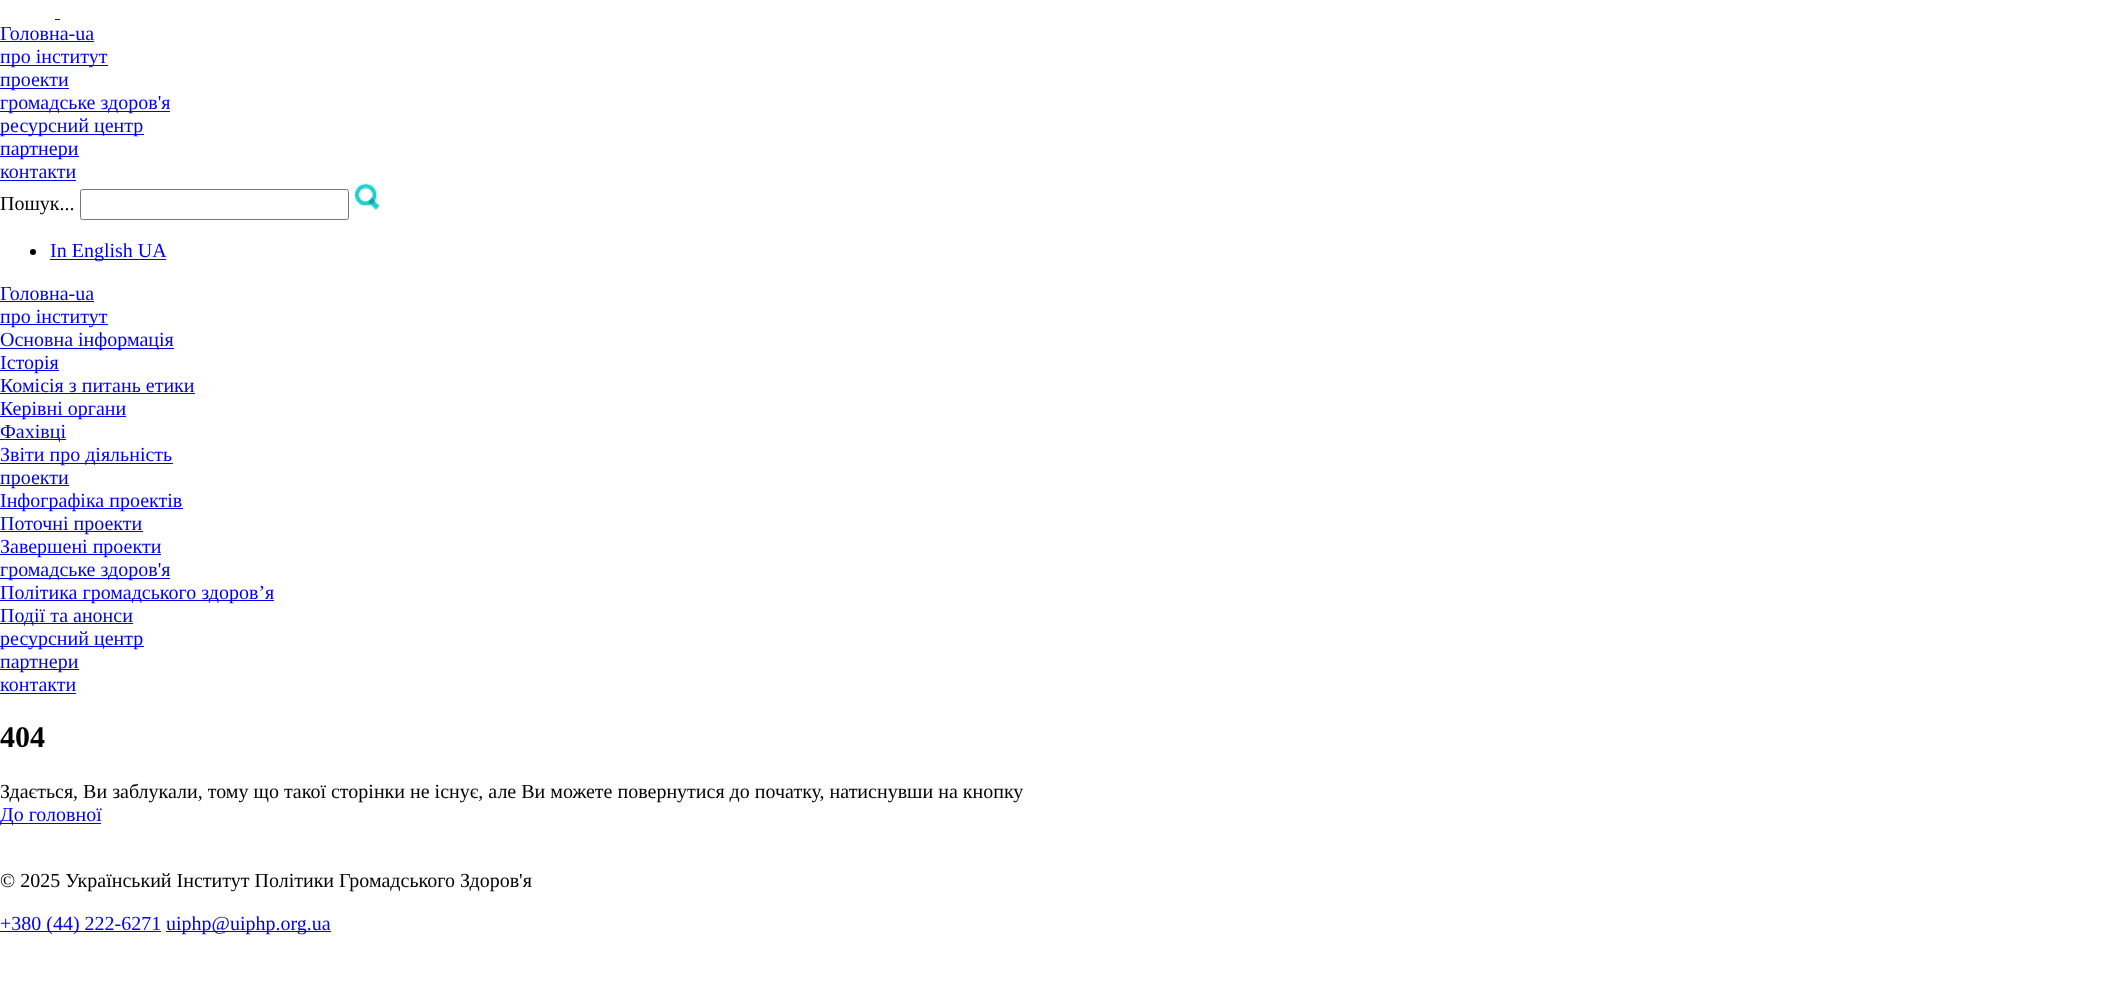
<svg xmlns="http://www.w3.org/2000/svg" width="2117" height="1003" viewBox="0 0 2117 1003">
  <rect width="100%" height="100%" fill="#ffffff"/>
  <rect x="55" y="19" width="5" height="1" fill="#0000ee"/>
  <text x="0" y="40" font-family="Liberation Serif" font-size="20" fill="#0000ee">Головна-ua</text>
  <rect x="0" y="41" width="94" height="1" fill="#0000ee"/>
  <rect x="0" y="65" width="108" height="1" fill="#0000ee"/>
  <text x="0" y="63" font-family="Liberation Serif" font-size="20" fill="#0000ee">про інститут</text>
  <rect x="0" y="88" width="69" height="1" fill="#0000ee"/>
  <text x="0" y="86" font-family="Liberation Serif" font-size="20" fill="#0000ee">проекти</text>
  <rect x="0" y="111" width="170" height="1" fill="#0000ee"/>
  <text x="0" y="109" font-family="Liberation Serif" font-size="20" fill="#0000ee">громадське здоров'я</text>
  <rect x="0" y="134" width="144" height="1" fill="#0000ee"/>
  <text x="0" y="132" font-family="Liberation Serif" font-size="20" fill="#0000ee">ресурсний центр</text>
  <rect x="0" y="156" width="79" height="1" fill="#0000ee"/>
  <text x="0" y="155" font-family="Liberation Serif" font-size="20" fill="#0000ee">партнери</text>
  <text x="0" y="178" font-family="Liberation Serif" font-size="20" fill="#0000ee">контакти</text>
  <rect x="0" y="180" width="76" height="1" fill="#0000ee"/>
  <text x="0" y="210" font-family="Liberation Serif" font-size="20" fill="#000000">Пошук...</text>
  <rect x="80.5" y="189.5" width="268" height="30" rx="2" fill="none" stroke="#767676"/>
  <image x="354" y="183" width="26" height="27" href="img1.png"/>
  <circle cx="33" cy="252" r="3" fill="#000000"/>
  <rect x="50" y="259" width="116" height="1" fill="#0000ee"/>
  <text x="50" y="257" font-family="Liberation Serif" font-size="20" fill="#0000ee">In English UA</text>
  <text x="0" y="300" font-family="Liberation Serif" font-size="20" fill="#0000ee">Головна-ua</text>
  <rect x="0" y="301" width="94" height="1" fill="#0000ee"/>
  <rect x="0" y="324" width="108" height="1" fill="#0000ee"/>
  <text x="0" y="323" font-family="Liberation Serif" font-size="20" fill="#0000ee">про інститут</text>
  <rect x="0" y="348" width="174" height="1" fill="#0000ee"/>
  <text x="0" y="346" font-family="Liberation Serif" font-size="20" fill="#0000ee">Основна інформація</text>
  <rect x="0" y="370" width="59" height="1" fill="#0000ee"/>
  <text x="0" y="369" font-family="Liberation Serif" font-size="20" fill="#0000ee">Історія</text>
  <text x="0" y="392" font-family="Liberation Serif" font-size="20" fill="#0000ee">Комісія з питань етики</text>
  <rect x="0" y="393" width="195" height="1" fill="#0000ee"/>
  <rect x="0" y="416" width="126" height="1" fill="#0000ee"/>
  <text x="0" y="415" font-family="Liberation Serif" font-size="20" fill="#0000ee">Керівні органи</text>
  <rect x="0" y="439" width="66" height="1" fill="#0000ee"/>
  <text x="0" y="438" font-family="Liberation Serif" font-size="20" fill="#0000ee">Фахівці</text>
  <rect x="0" y="463" width="173" height="1" fill="#0000ee"/>
  <text x="0" y="461" font-family="Liberation Serif" font-size="20" fill="#0000ee">Звіти про діяльність</text>
  <rect x="0" y="485" width="69" height="1" fill="#0000ee"/>
  <text x="0" y="484" font-family="Liberation Serif" font-size="20" fill="#0000ee">проекти</text>
  <rect x="0" y="508" width="183" height="1" fill="#0000ee"/>
  <text x="0" y="507" font-family="Liberation Serif" font-size="20" fill="#0000ee">Інфографіка проектів</text>
  <rect x="0" y="531" width="143" height="1" fill="#0000ee"/>
  <text x="0" y="530" font-family="Liberation Serif" font-size="20" fill="#0000ee">Поточні проекти</text>
  <rect x="0" y="554" width="161" height="1" fill="#0000ee"/>
  <text x="0" y="553" font-family="Liberation Serif" font-size="20" fill="#0000ee">Завершені проекти</text>
  <rect x="0" y="578" width="170" height="1" fill="#0000ee"/>
  <text x="0" y="576" font-family="Liberation Serif" font-size="20" fill="#0000ee">громадське здоров'я</text>
  <rect x="0" y="600" width="274" height="1" fill="#0000ee"/>
  <text x="0" y="599" font-family="Liberation Serif" font-size="20" fill="#0000ee">Політика громадського здоров’я</text>
  <rect x="0" y="623" width="133" height="1" fill="#0000ee"/>
  <text x="0" y="622" font-family="Liberation Serif" font-size="20" fill="#0000ee">Події та анонси</text>
  <rect x="0" y="646" width="144" height="1" fill="#0000ee"/>
  <text x="0" y="645" font-family="Liberation Serif" font-size="20" fill="#0000ee">ресурсний центр</text>
  <rect x="0" y="669" width="79" height="1" fill="#0000ee"/>
  <text x="0" y="668" font-family="Liberation Serif" font-size="20" fill="#0000ee">партнери</text>
  <text x="0" y="691" font-family="Liberation Serif" font-size="20" fill="#0000ee">контакти</text>
  <rect x="0" y="693" width="76" height="1" fill="#0000ee"/>
  <text x="0" y="747" font-family="Liberation Serif" font-size="30" font-weight="bold" fill="#000000">404</text>
  <text x="0" y="798" font-family="Liberation Serif" font-size="20" fill="#000000">Здається, Bи заблукали, тому що такої сторінки не існує, але Ви можете повернутися до початку, натиснувши на кнопку</text>
  <rect x="0" y="823" width="101" height="1" fill="#0000ee"/>
  <text x="0" y="821" font-family="Liberation Serif" font-size="20" fill="#0000ee">До головної</text>
  <text x="0" y="887" font-family="Liberation Serif" font-size="20" fill="#000000">© 2025 Український Інститут Політики Громадського Здоров'я</text>
  <rect x="0" y="931" width="161" height="1" fill="#0000ee"/>
  <text x="0" y="930" font-family="Liberation Serif" font-size="20" fill="#0000ee">+380 (44) 222-6271</text>
  <rect x="166" y="931" width="165" height="1" fill="#0000ee"/>
  <text x="166" y="930" font-family="Liberation Serif" font-size="20" fill="#0000ee">uiphp@uiphp.org.ua</text>
</svg>
